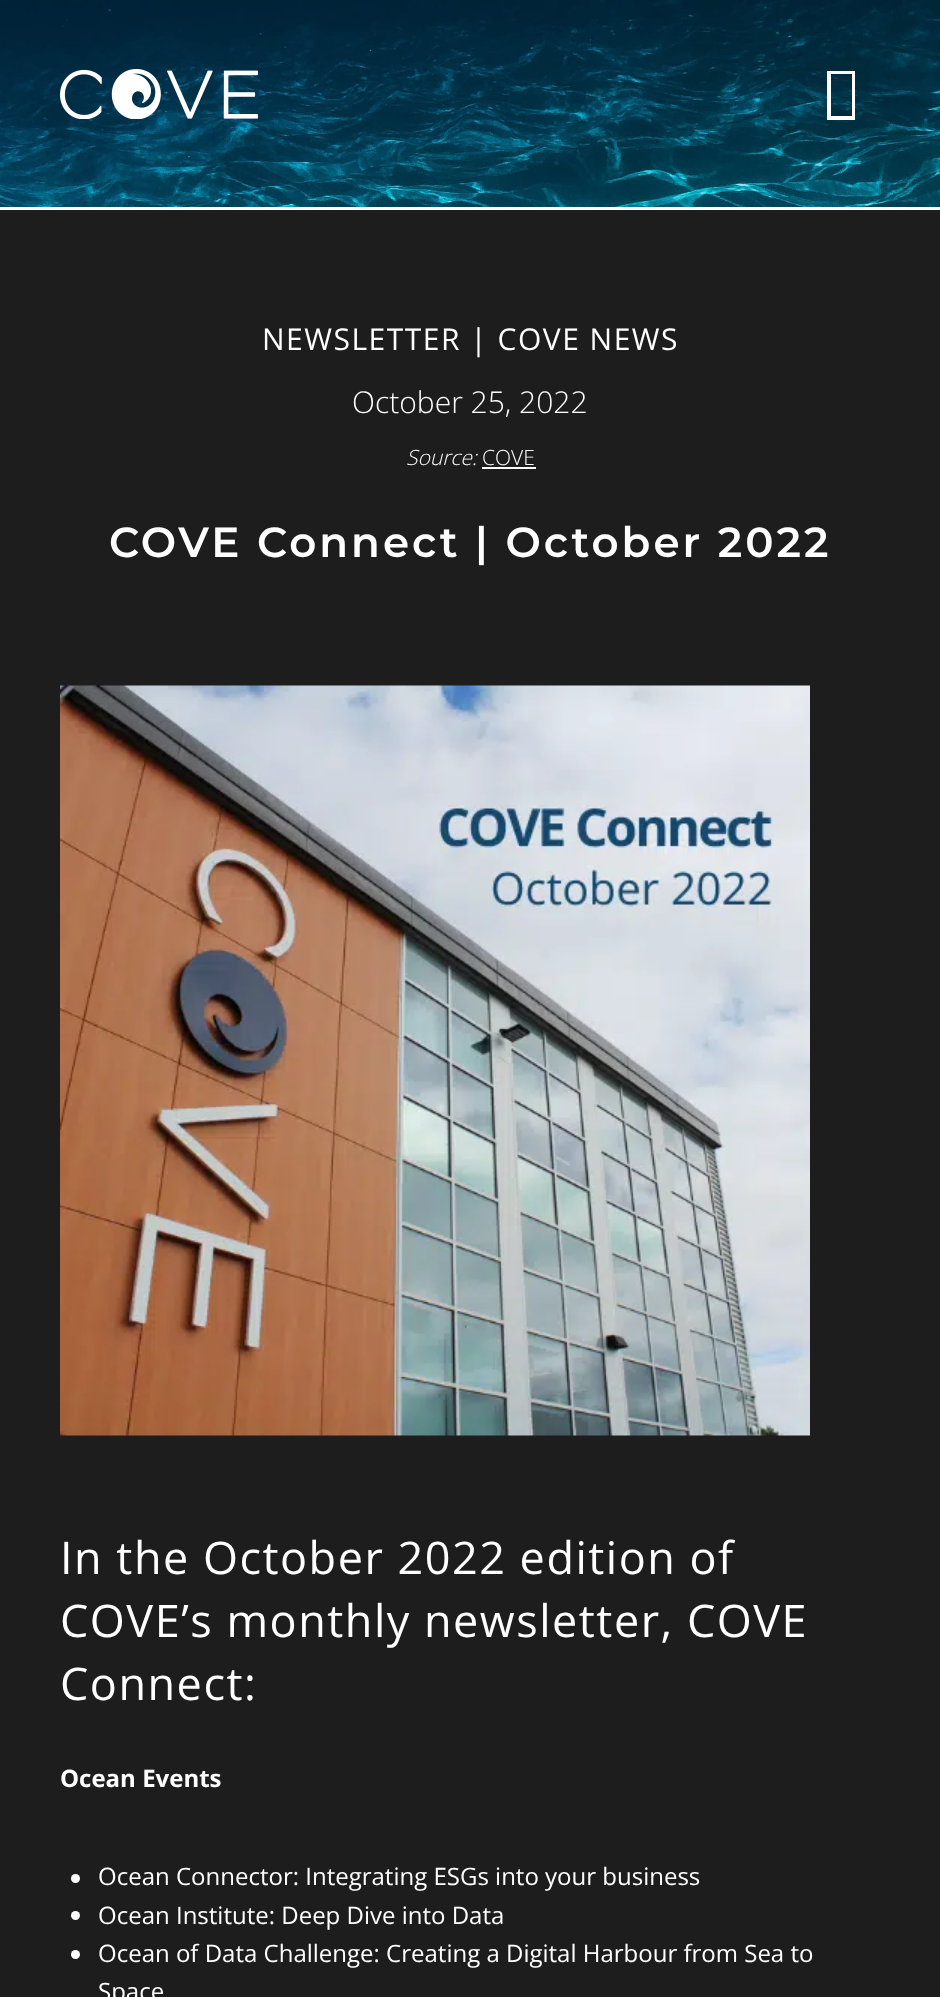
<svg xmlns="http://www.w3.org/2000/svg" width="940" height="1997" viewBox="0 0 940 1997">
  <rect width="100%" height="100%" fill="#1d1d1d"/>
  <rect x="0" y="207" width="940" height="3" fill="#ffffff"/>
  <image x="0" y="0" width="940" height="207" href="img1.png"/>
  <image x="60" y="69" width="198" height="50" href="img2.png"/>
  <path d="M827 120V71H855V120ZM831 116H852V74H831Z" fill="#ffffff"/>
  <text x="262" y="350" font-family="Open Sans" font-size="30" letter-spacing="1.5" fill="#ffffff">NEWSLETTER | COVE NEWS</text>
  <text x="352" y="413" font-family="Open Sans" font-size="30" font-weight="300" fill="#ffffff">October 25, 2022</text>
  <text x="406" y="465" font-family="Open Sans" font-size="21" font-weight="300" font-style="italic" fill="#ffffff">Source:</text>
  <text x="482" y="465" font-family="Open Sans" font-size="21" font-weight="300" fill="#ffffff">COVE</text>
  <rect x="482" y="467" width="54" height="2" fill="#ffffff"/>
  <text x="109" y="557" font-family="Montserrat" font-size="42" font-weight="600" letter-spacing="3" fill="#ffffff">COVE Connect | October 2022</text>
  <image x="60" y="685" width="750" height="751" href="img3.png"/>
  <text x="60" y="1574" font-family="Open Sans" font-size="45" letter-spacing="1.5" fill="#ffffff">In the October 2022 edition of</text>
  <text x="60" y="1637" font-family="Open Sans" font-size="45" letter-spacing="1.5" fill="#ffffff">COVE’s monthly newsletter, COVE</text>
  <text x="60" y="1700" font-family="Open Sans" font-size="45" letter-spacing="1.5" fill="#ffffff">Connect:</text>
  <text x="60" y="1787" font-family="Open Sans" font-size="24" font-weight="bold" fill="#ffffff">Ocean Events</text>
  <circle cx="75.5" cy="1878.5" r="4.5" fill="#ffffff"/>
  <text x="98" y="1885" font-family="Open Sans" font-size="24" fill="#ffffff">Ocean Connector: Integrating ESGs into your business</text>
  <circle cx="75.5" cy="1915.5" r="4.5" fill="#ffffff"/>
  <text x="98" y="1924" font-family="Open Sans" font-size="24" fill="#ffffff">Ocean Institute: Deep Dive into Data</text>
  <circle cx="75.5" cy="1954.5" r="4.5" fill="#ffffff"/>
  <text x="98" y="1962" font-family="Open Sans" font-size="24" fill="#ffffff">Ocean of Data Challenge: Creating a Digital Harbour from Sea to</text>
  <text x="98" y="2000" font-family="Open Sans" font-size="24" fill="#ffffff">Space</text>
</svg>
